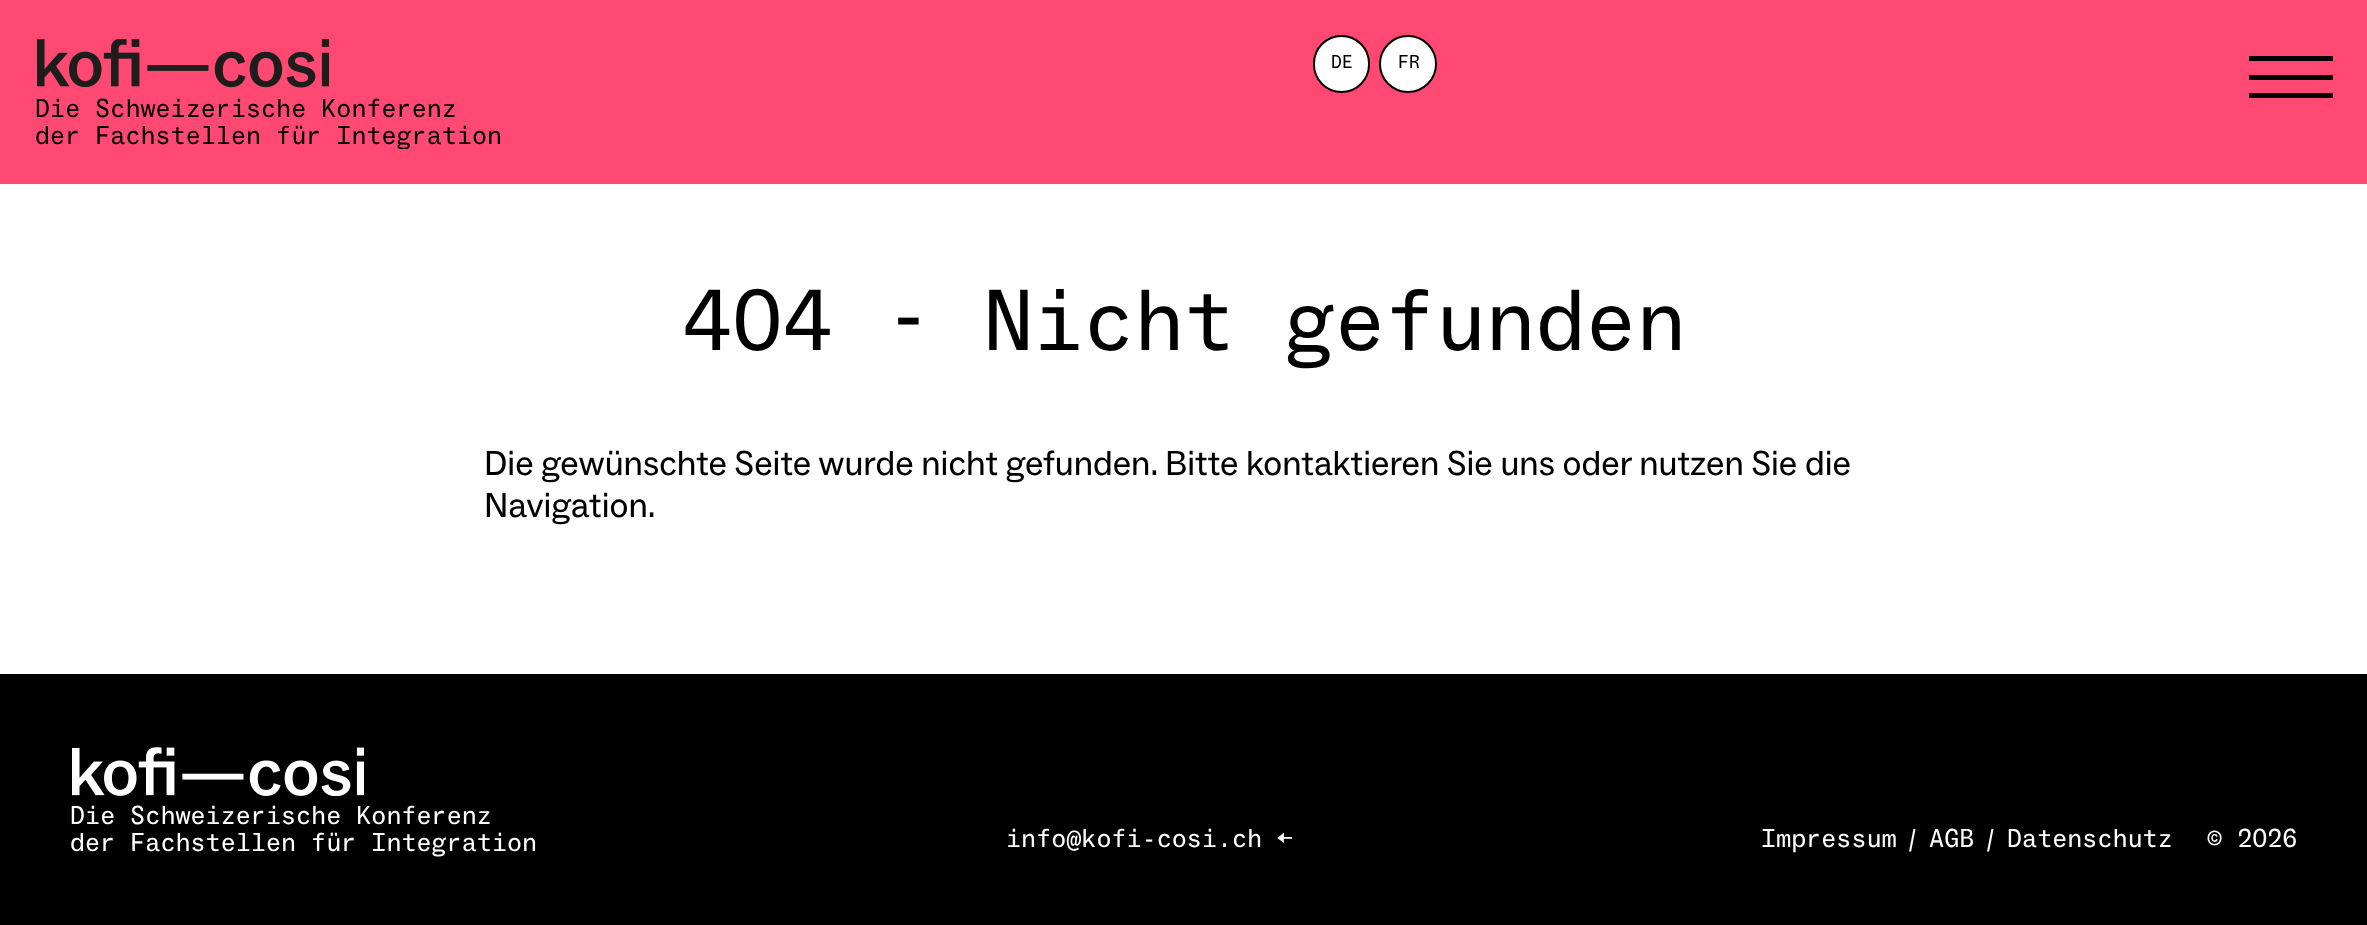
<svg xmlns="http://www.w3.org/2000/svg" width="2367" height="925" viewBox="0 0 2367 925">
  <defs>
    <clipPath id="clip1"><rect x="35" y="96" width="467" height="53"/></clipPath>
  </defs>
  <rect width="100%" height="100%" fill="#ffffff"/>
  <rect x="0" y="0" width="2367" height="184" fill="#ff4972"/>
  <rect x="1314" y="36" width="55" height="56" rx="27.5" fill="#ffffff" stroke="#000000" stroke-width="2"/>
  <text x="1331" y="68" font-family="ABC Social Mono" font-size="19" fill="#000000">DE</text>
  <circle cx="1408" cy="64" r="28" fill="#ffffff" stroke="#000000" stroke-width="2"/>
  <text x="1398" y="68" font-family="ABC Social Mono" font-size="19" fill="#000000">FR</text>
  <rect x="2249" y="56" width="84" height="5" fill="#000000"/>
  <rect x="2249" y="75" width="84" height="5" fill="#000000"/>
  <rect x="2249" y="93" width="84" height="5" fill="#000000"/>
  <image x="37" y="39" width="292" height="49" href="img1.png"/>
  <text x="35" y="117" font-family="ABC Social Mono" font-size="26.25" fill="#000000">Die Schweizerische Konferenz</text>
  <g clip-path="url(#clip1)">
    <text x="35" y="144" font-family="ABC Social Mono" font-size="26.25" fill="#000000">der Fachstellen für Integration</text>
  </g>
  <text x="682" y="350" font-family="ABC Social Mono" font-size="87.5" fill="#000000">404 - Nicht gefunden</text>
  <text x="484" y="475" font-family="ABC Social" font-size="35" fill="#000000">Die gewünschte Seite wurde nicht gefunden. Bitte kontaktieren Sie uns oder nutzen Sie die</text>
  <text x="484" y="517" font-family="ABC Social" font-size="35" fill="#000000">Navigation.</text>
  <rect x="0" y="674" width="2367" height="251" fill="#000000"/>
  <image x="72" y="747" width="292" height="49" href="img2.png"/>
  <text x="70" y="824" font-family="ABC Social Mono" font-size="26.25" fill="#ffffff">Die Schweizerische Konferenz</text>
  <text x="70" y="851" font-family="ABC Social Mono" font-size="26.25" fill="#ffffff">der Fachstellen für Integration</text>
  <text x="1006" y="847" font-family="ABC Social Mono" font-size="26.25" fill="#ffffff">info@kofi-cosi.ch &lt;-</text>
  <text x="1761" y="847" font-family="ABC Social Mono" font-size="26.25" fill="#ffffff">Impressum</text>
  <text x="1905" y="847" font-family="ABC Social Mono" font-size="26.25" fill="#ffffff">/</text>
  <text x="1929" y="847" font-family="ABC Social Mono" font-size="26.25" fill="#ffffff">AGB</text>
  <text x="1983" y="847" font-family="ABC Social Mono" font-size="26.25" fill="#ffffff">/</text>
  <text x="2007" y="847" font-family="ABC Social Mono" font-size="26.25" fill="#ffffff">Datenschutz</text>
  <text x="2207" y="847" font-family="ABC Social Mono" font-size="26.25" fill="#ffffff">© 2026</text>
</svg>
